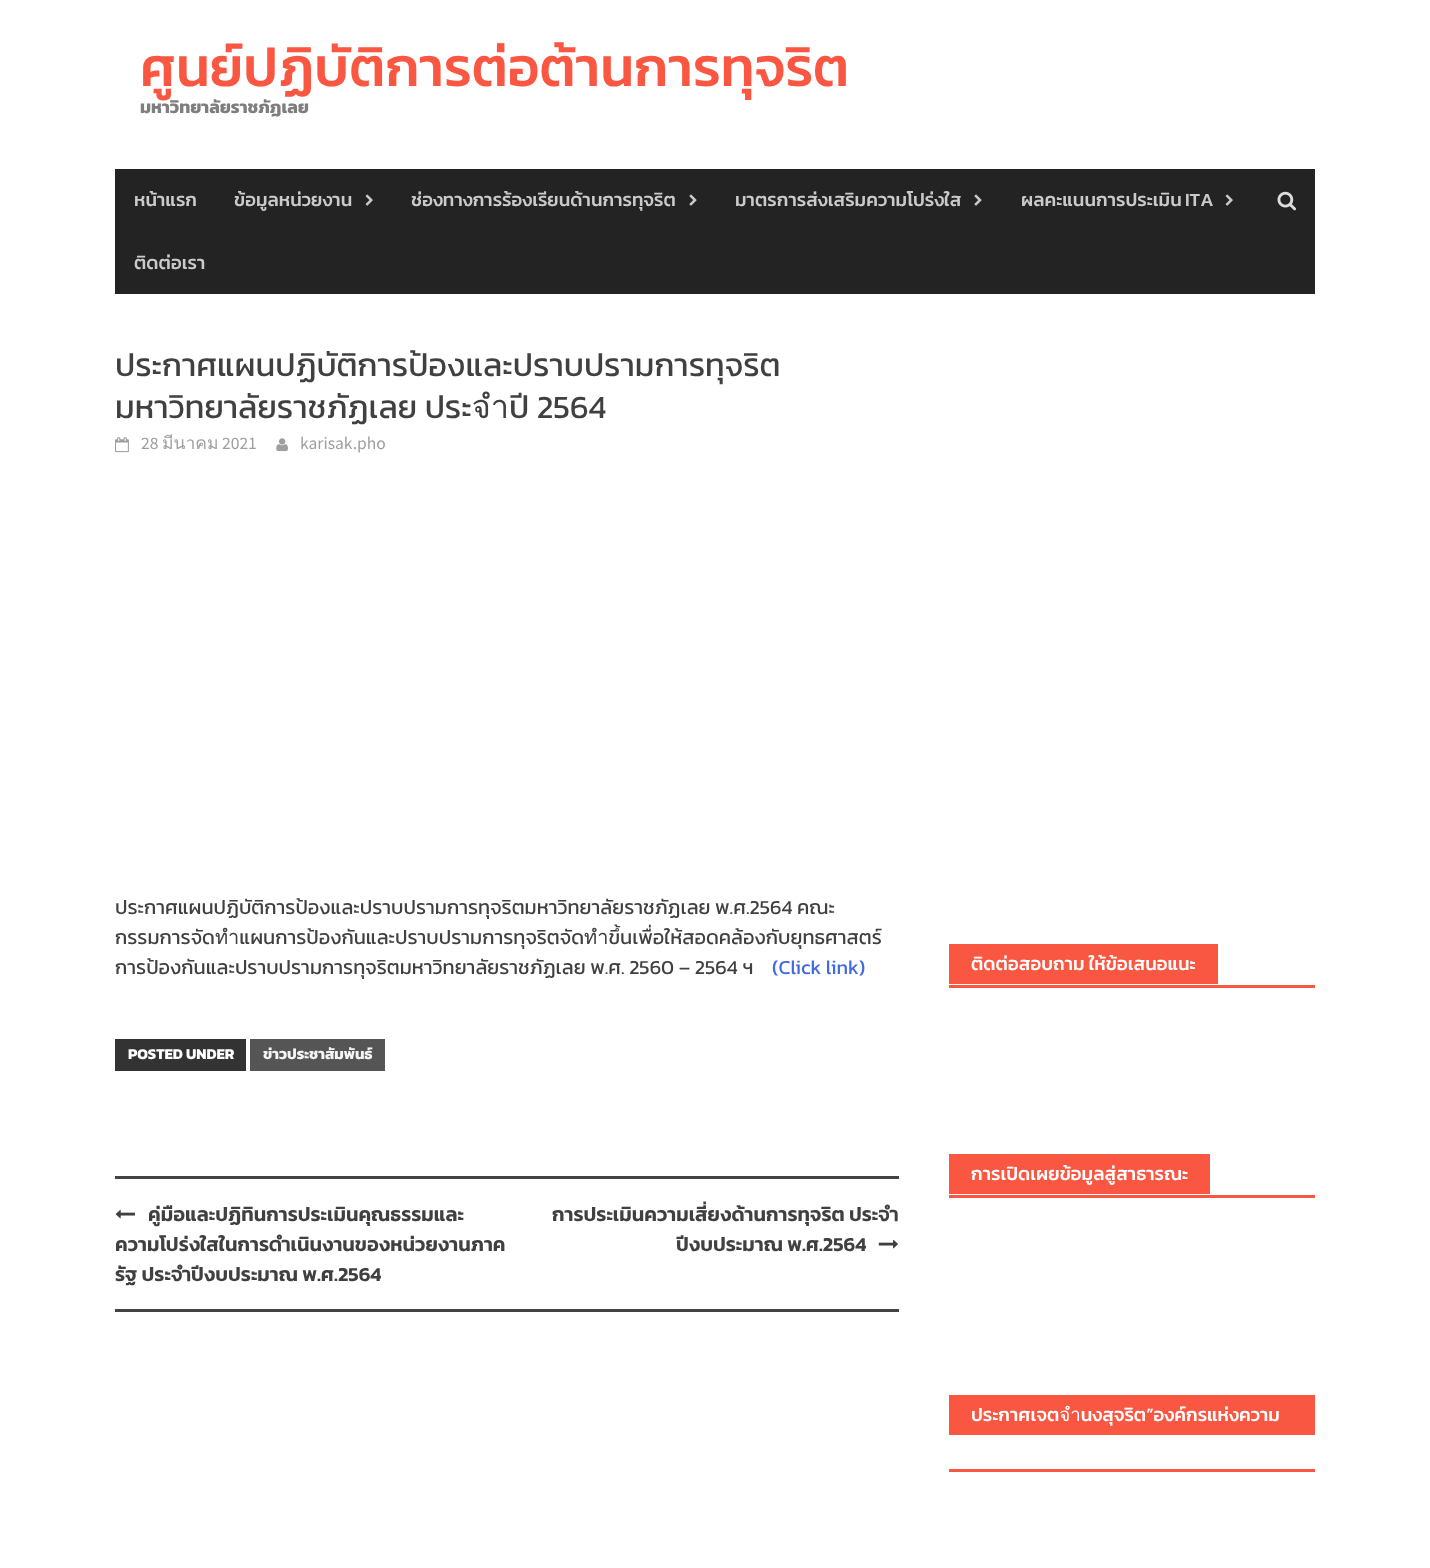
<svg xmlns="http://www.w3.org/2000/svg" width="1430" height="1568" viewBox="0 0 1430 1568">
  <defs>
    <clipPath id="clip1"><rect x="115" y="1179" width="784" height="130"/></clipPath>
  </defs>
  <rect width="100%" height="100%" fill="#ffffff"/>
  <text x="140" y="86" font-family="Kanit" font-size="55" font-weight="500" fill="#fa5742">ศูนย์ปฏิบัติการต่อต้านการทุจริต</text>
  <text x="140" y="113" font-family="Kanit" font-size="17.5" font-weight="bold" fill="#7e7e7e">มหาวิทยาลัยราชภัฏเลย</text>
  <rect x="115" y="169" width="1200" height="125" fill="#232323"/>
  <text x="134" y="206" font-family="Kanit" font-size="18.75" font-weight="500" fill="#cacaca">หน้าแรก</text>
  <text x="234" y="206" font-family="Kanit" font-size="18.75" font-weight="500" fill="#cacaca">ข้อมูลหน่วยงาน</text>
  <image x="365" y="194" width="8" height="12" href="img1.png"/>
  <text x="411" y="206" font-family="Kanit" font-size="18.75" font-weight="500" fill="#cacaca">ช่องทางการร้องเรียนด้านการทุจริต</text>
  <image x="689" y="194" width="8" height="12" href="img2.png"/>
  <text x="735" y="206" font-family="Kanit" font-size="18.75" font-weight="500" fill="#cacaca">มาตรการส่งเสริมความโปร่งใส</text>
  <image x="974" y="194" width="8" height="12" href="img2.png"/>
  <text x="1021" y="206" word-spacing="-1" font-family="Kanit" font-size="18.75" font-weight="500" fill="#cacaca">ผลคะแนนการประเมิน ITA</text>
  <image x="1225" y="194" width="8" height="12" href="img1.png"/>
  <text x="134" y="269" font-family="Kanit" font-size="18.75" font-weight="500" fill="#cacaca">ติดต่อเรา</text>
  <image x="1277" y="191" width="19" height="20" href="img3.png"/>
  <text x="115" y="376" font-family="Kanit" font-size="32.5" fill="#404040">ประกาศแผนปฏิบัติการป้องและปราบปรามการทุจริต</text>
  <text x="115" y="418" font-family="Kanit" font-size="32.5" fill="#404040">มหาวิทยาลัยราชภัฏเลย ประจำปี 2564</text>
  <image x="115" y="437" width="14" height="16" href="img4.png"/>
  <text x="141" y="449" font-family="Source Sans Pro" font-size="17.5" fill="#9f9f9f">28</text>
  <text x="162" y="449" font-family="Loma" font-size="17.5" fill="#9f9f9f">มีนาคม</text>
  <text x="222" y="449" font-family="Source Sans Pro" font-size="17.5" fill="#9f9f9f">2021</text>
  <image x="276" y="438" width="12" height="14" href="img5.png"/>
  <text x="300" y="449" font-family="Source Sans Pro" font-size="17.5" fill="#9f9f9f">karisak.pho</text>
  <text x="115" y="914" font-family="Kanit" font-size="20" fill="#404040">ประกาศแผนปฏิบัติการป้องและปราบปรามการทุจริตมหาวิทยาลัยราชภัฏเลย พ.ศ.2564 คณะ</text>
  <text x="115" y="944" font-family="Kanit" font-size="20" fill="#404040">กรรมการจัดทำแผนการป้องกันและปราบปรามการทุจริตจัดทำขึ้นเพื่อให้สอดคล้องกับยุทธศาสตร์</text>
  <text x="115" y="974" font-family="Kanit" font-size="20" fill="#404040">การป้องกันและปราบปรามการทุจริตมหาวิทยาลัยราชภัฏเลย พ.ศ. 2560 – 2564 ฯ</text>
  <text x="772" y="974" font-family="Kanit" font-size="20" fill="#4169e1">(Click link)</text>
  <rect x="115" y="1039" width="131" height="32" fill="#333333"/>
  <text x="128" y="1059" font-family="Kanit" font-size="15" font-weight="bold" fill="#ffffff">POSTED UNDER</text>
  <rect x="250" y="1039" width="135" height="32" fill="#555555"/>
  <text x="263" y="1059" font-family="Kanit" font-size="15" font-weight="bold" fill="#f5f5f5">ข่าวประชาสัมพันธ์</text>
  <rect x="115" y="1176" width="784" height="3" fill="#444444"/>
  <rect x="115" y="1309" width="784" height="3" fill="#444444"/>
  <image x="115" y="1209" width="20" height="10" href="img6.png"/>
  <text x="148" y="1221" font-family="Kanit" font-size="20" font-weight="600" fill="#404040">คู่มือและปฏิทินการประเมินคุณธรรมและ</text>
  <text x="115" y="1251" font-family="Kanit" font-size="20" font-weight="600" fill="#404040">ความโปร่งใสในการดำเนินงานของหน่วยงานภาค</text>
  <g clip-path="url(#clip1)">
    <text x="115" y="1281" font-family="Kanit" font-size="20" font-weight="600" fill="#404040">รัฐ ประจำปีงบประมาณ พ.ศ.2564</text>
  </g>
  <text x="552" y="1221" font-family="Kanit" font-size="20" font-weight="600" fill="#404040">การประเมินความเสี่ยงด้านการทุจริต ประจำ</text>
  <text x="676" y="1251" font-family="Kanit" font-size="20" font-weight="600" fill="#404040">ปีงบประมาณ พ.ศ.2564</text>
  <image x="878" y="1239" width="20" height="10" href="img7.png"/>
  <rect x="949" y="985" width="366" height="3" fill="#fa5742"/>
  <rect x="949" y="944" width="269" height="40" fill="#fa5742"/>
  <text x="971" y="970" font-family="Kanit" font-size="18.75" font-weight="500" fill="#ffffff">ติดต่อสอบถาม ให้ข้อเสนอแนะ</text>
  <rect x="949" y="1195" width="366" height="3" fill="#fa5742"/>
  <rect x="949" y="1154" width="261" height="40" fill="#fa5742"/>
  <text x="971" y="1180" font-family="Kanit" font-size="18.75" font-weight="500" fill="#ffffff">การเปิดเผยข้อมูลสู่สาธารณะ</text>
  <rect x="949" y="1469" width="366" height="3" fill="#fa5742"/>
  <rect x="949" y="1395" width="366" height="40" fill="#fa5742"/>
  <text x="971" y="1421" font-family="Kanit" font-size="18.75" font-weight="500" fill="#ffffff">ประกาศเจตจำนงสุจริต”องค์กรแห่งความ</text>
</svg>
